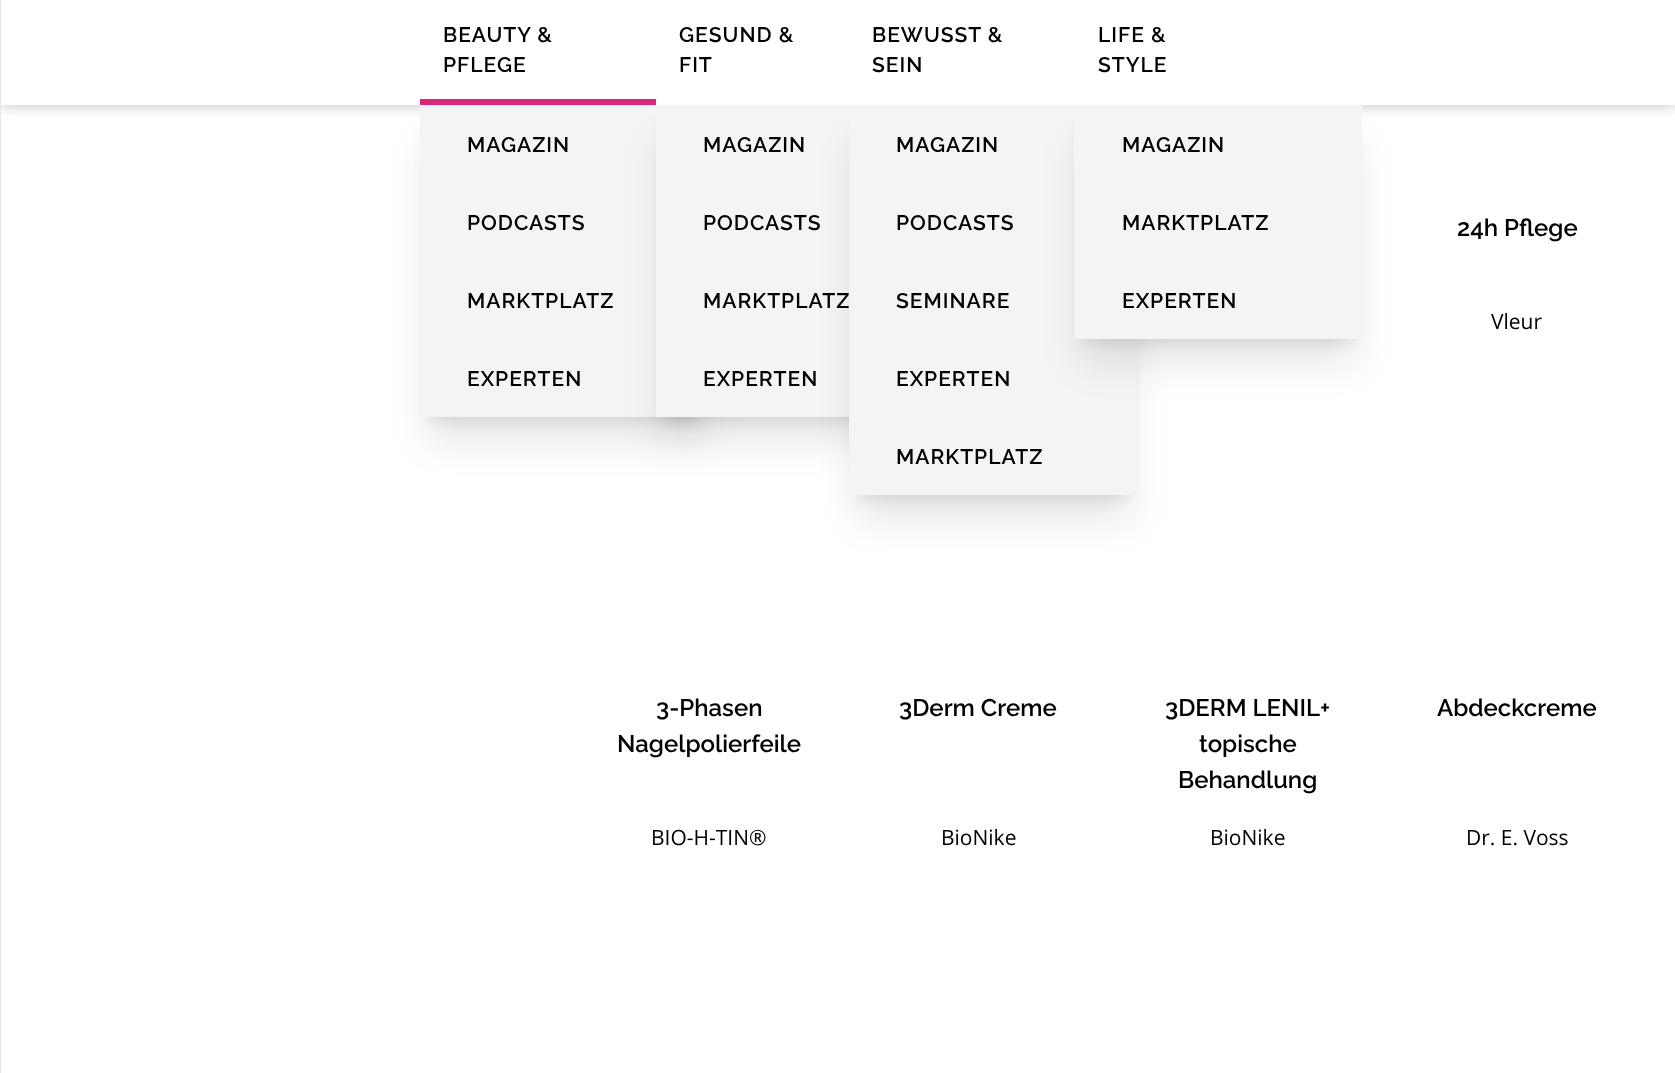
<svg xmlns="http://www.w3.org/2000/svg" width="1675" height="1073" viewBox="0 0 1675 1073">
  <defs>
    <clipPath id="clip1"><rect x="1" y="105" width="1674" height="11"/></clipPath>
    <filter id="blur1" x="-50%" y="-200%" width="200%" height="500%"><feGaussianBlur stdDeviation="7.5"/></filter>
    <filter id="blur2" x="-50%" y="-200%" width="200%" height="500%"><feGaussianBlur stdDeviation="19"/></filter>
  </defs>
  <rect width="100%" height="100%" fill="#ffffff"/>
  <g clip-path="url(#clip1)">
    <rect x="0" y="0" width="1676" height="105" fill="#000000" fill-opacity="0.25" filter="url(#blur1)"/>
  </g>
  <rect x="0" y="0" width="1" height="1073" fill="#e5e7eb"/>
  <rect x="420" y="99" width="236" height="6" fill="#db2777"/>
  <text x="443" y="42" font-family="Raleway" font-size="21" font-weight="600" letter-spacing="1" fill="#000000">BEAUTY &amp;</text>
  <text x="443" y="72" font-family="Raleway" font-size="21" font-weight="600" letter-spacing="1" fill="#000000">PFLEGE</text>
  <rect x="429" y="126" width="270" height="294" fill="#000000" fill-opacity="0.1" filter="url(#blur1)"/>
  <rect x="428" y="143" width="273" height="297" fill="#000000" fill-opacity="0.1" filter="url(#blur2)"/>
  <rect x="420" y="105" width="236" height="312" fill="#f3f4f6"/>
  <text x="467" y="152" font-family="Raleway" font-size="21" font-weight="600" letter-spacing="1" fill="#000000">MAGAZIN</text>
  <text x="467" y="230" font-family="Raleway" font-size="21" font-weight="600" letter-spacing="1" fill="#000000">PODCASTS</text>
  <text x="467" y="308" font-family="Raleway" font-size="21" font-weight="600" letter-spacing="1" fill="#000000">MARKTPLATZ</text>
  <text x="467" y="386" font-family="Raleway" font-size="21" font-weight="600" letter-spacing="1" fill="#000000">EXPERTEN</text>
  <text x="679" y="42" font-family="Raleway" font-size="21" font-weight="600" letter-spacing="1" fill="#000000">GESUND &amp;</text>
  <text x="679" y="72" font-family="Raleway" font-size="21" font-weight="600" letter-spacing="1" fill="#000000">FIT</text>
  <rect x="665" y="126" width="270" height="294" fill="#000000" fill-opacity="0.1" filter="url(#blur1)"/>
  <rect x="663" y="143" width="273" height="297" fill="#000000" fill-opacity="0.1" filter="url(#blur2)"/>
  <rect x="656" y="105" width="193" height="312" fill="#f3f4f6"/>
  <text x="703" y="152" font-family="Raleway" font-size="21" font-weight="600" letter-spacing="1" fill="#000000">MAGAZIN</text>
  <text x="703" y="230" font-family="Raleway" font-size="21" font-weight="600" letter-spacing="1" fill="#000000">PODCASTS</text>
  <text x="703" y="308" font-family="Raleway" font-size="21" font-weight="600" letter-spacing="1" fill="#000000">MARKTPLATZ</text>
  <text x="703" y="386" font-family="Raleway" font-size="21" font-weight="600" letter-spacing="1" fill="#000000">EXPERTEN</text>
  <text x="872" y="42" font-family="Raleway" font-size="21" font-weight="600" letter-spacing="1" fill="#000000">BEWUSST &amp;</text>
  <text x="872" y="72" font-family="Raleway" font-size="21" font-weight="600" letter-spacing="1" fill="#000000">SEIN</text>
  <rect x="858" y="126" width="270" height="372" fill="#000000" fill-opacity="0.1" filter="url(#blur1)"/>
  <rect x="857" y="143" width="273" height="375" fill="#000000" fill-opacity="0.1" filter="url(#blur2)"/>
  <rect x="849" y="105" width="288" height="390" fill="#f3f4f6"/>
  <text x="896" y="152" font-family="Raleway" font-size="21" font-weight="600" letter-spacing="1" fill="#000000">MAGAZIN</text>
  <text x="896" y="230" font-family="Raleway" font-size="21" font-weight="600" letter-spacing="1" fill="#000000">PODCASTS</text>
  <text x="896" y="308" font-family="Raleway" font-size="21" font-weight="600" letter-spacing="1" fill="#000000">SEMINARE</text>
  <text x="896" y="386" font-family="Raleway" font-size="21" font-weight="600" letter-spacing="1" fill="#000000">EXPERTEN</text>
  <text x="896" y="464" font-family="Raleway" font-size="21" font-weight="600" letter-spacing="1" fill="#000000">MARKTPLATZ</text>
  <text x="1098" y="42" font-family="Raleway" font-size="21" font-weight="600" letter-spacing="1" fill="#000000">LIFE &amp;</text>
  <text x="1098" y="72" font-family="Raleway" font-size="21" font-weight="600" letter-spacing="1" fill="#000000">STYLE</text>
  <rect x="1083" y="126" width="270" height="216" fill="#000000" fill-opacity="0.1" filter="url(#blur1)"/>
  <rect x="1082" y="143" width="273" height="219" fill="#000000" fill-opacity="0.1" filter="url(#blur2)"/>
  <rect x="1074" y="105" width="288" height="234" fill="#f3f4f6"/>
  <text x="1122" y="152" font-family="Raleway" font-size="21" font-weight="600" letter-spacing="1" fill="#000000">MAGAZIN</text>
  <text x="1122" y="230" font-family="Raleway" font-size="21" font-weight="600" letter-spacing="1" fill="#000000">MARKTPLATZ</text>
  <text x="1122" y="308" font-family="Raleway" font-size="21" font-weight="600" letter-spacing="1" fill="#000000">EXPERTEN</text>
  <text x="1457" y="236" font-family="Raleway" font-size="24" font-weight="600" fill="#000000">24h Pflege</text>
  <text x="1491" y="329" font-family="Open Sans" font-size="21" fill="#000000">Vleur</text>
  <text x="656" y="716" font-family="Raleway" font-size="24" font-weight="600" fill="#000000">3-Phasen</text>
  <text x="617" y="752" font-family="Raleway" font-size="24" font-weight="600" fill="#000000">Nagelpolierfeile</text>
  <text x="651" y="845" font-family="Open Sans" font-size="21" fill="#000000">BIO-H-TIN®</text>
  <text x="899" y="716" font-family="Raleway" font-size="24" font-weight="600" fill="#000000">3Derm Creme</text>
  <text x="941" y="845" font-family="Open Sans" font-size="21" fill="#000000">BioNike</text>
  <text x="1165" y="716" font-family="Raleway" font-size="24" font-weight="600" fill="#000000">3DERM LENIL+</text>
  <text x="1199" y="752" font-family="Raleway" font-size="24" font-weight="600" fill="#000000">topische</text>
  <text x="1178" y="788" font-family="Raleway" font-size="24" font-weight="600" fill="#000000">Behandlung</text>
  <text x="1210" y="845" font-family="Open Sans" font-size="21" fill="#000000">BioNike</text>
  <text x="1437" y="716" font-family="Raleway" font-size="24" font-weight="600" fill="#000000">Abdeckcreme</text>
  <text x="1466" y="845" font-family="Open Sans" font-size="21" fill="#000000">Dr. E. Voss</text>
</svg>
